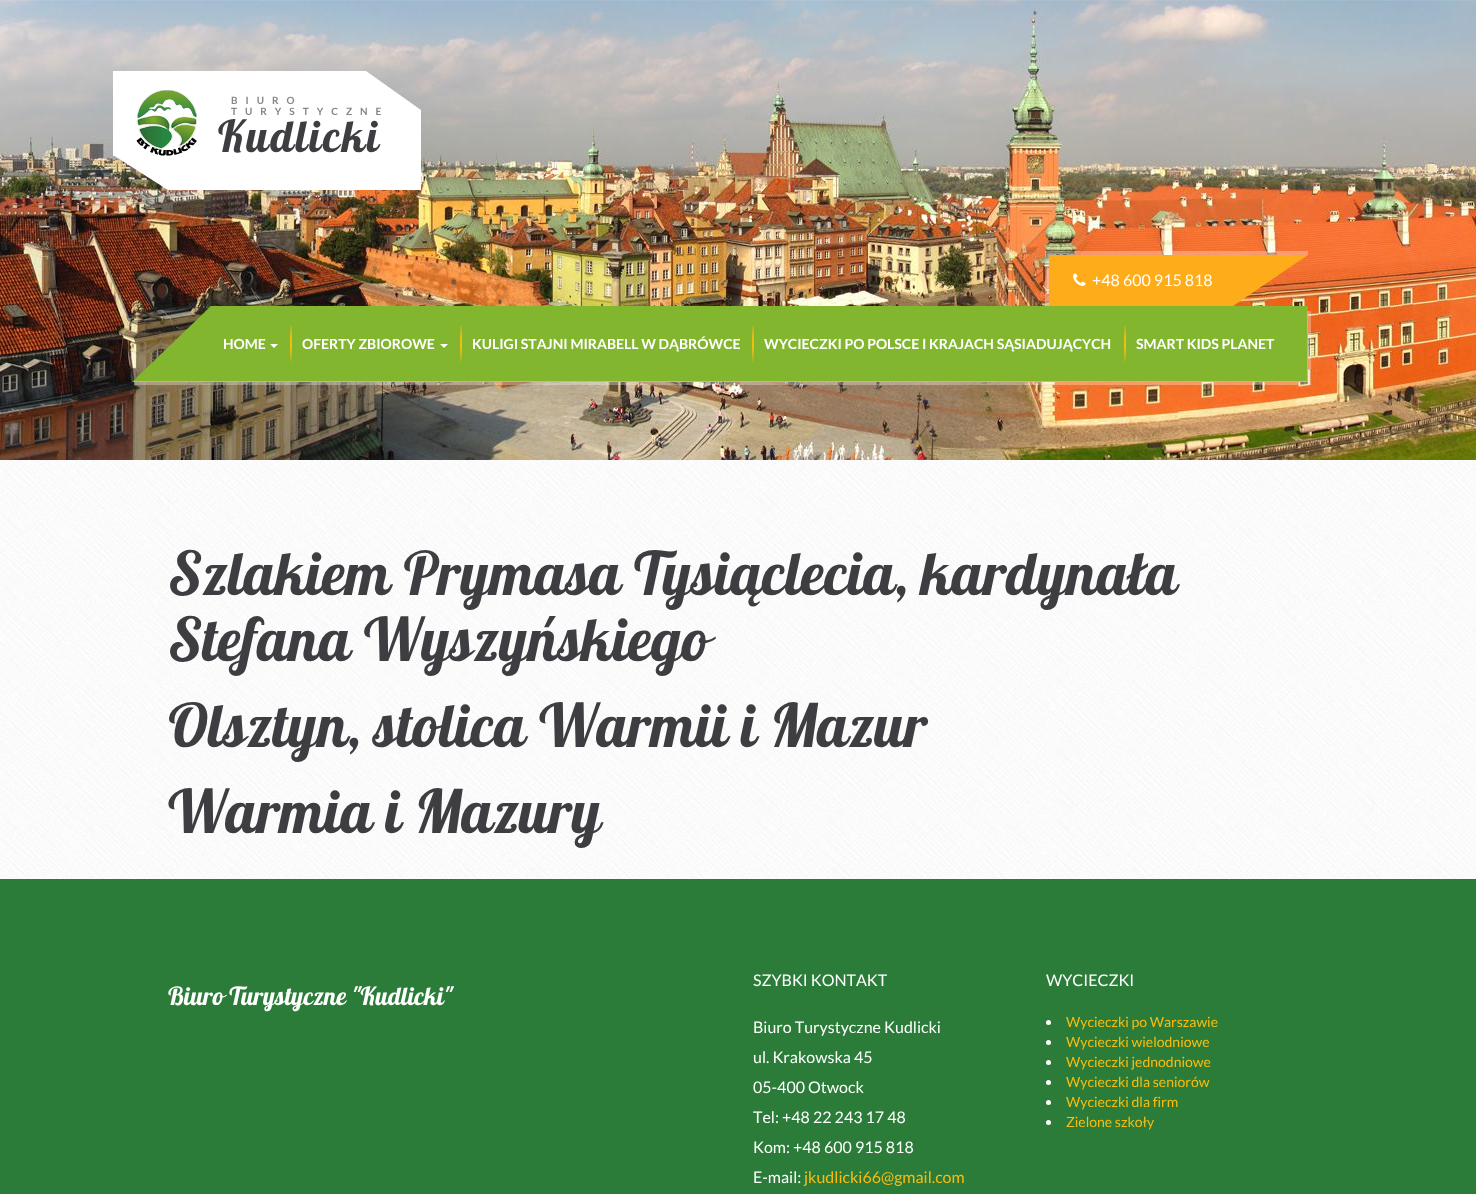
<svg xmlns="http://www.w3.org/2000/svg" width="1476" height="1194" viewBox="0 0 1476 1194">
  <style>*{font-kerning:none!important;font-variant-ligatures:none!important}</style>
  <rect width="100%" height="100%" fill="#ffffff"/>
  <image x="0" y="460" width="1476" height="419" href="img1.png"/>
  <image x="0" y="0" width="1476" height="460" href="img2.png"/>
  <rect x="113" y="71" width="253" height="39" fill="#ffffff"/>
  <path d="M366 110V71L421 110Z" fill="#ffffff"/>
  <path d="M168 155V190L113 155Z" fill="#ffffff"/>
  <rect x="113" y="110" width="55" height="46" fill="#ffffff"/>
  <rect x="168" y="110" width="253" height="80" fill="#ffffff"/>
  <image x="136" y="90" width="61" height="66" href="img3.png"/>
  <text x="231" y="104" font-family="Lato" font-size="10" font-weight="bold" letter-spacing="8" fill="#868686">BIURO</text>
  <text x="231" y="115" font-family="Lato" font-size="10" font-weight="bold" letter-spacing="8" fill="#868686">TURYSTYCZNE</text>
  <text x="218" y="152" font-family="Lobster" font-size="44" letter-spacing="2" fill="#3e3e42">Kudlicki</text>
  <rect x="1045" y="251" width="4" height="55" fill="#ffffff" fill-opacity="0.3"/>
  <rect x="1049" y="251" width="184" height="4" fill="#ffffff" fill-opacity="0.3"/>
  <rect x="1049" y="255" width="184" height="51" fill="#ffac1b"/>
  <rect x="1233" y="251" width="75" height="4" fill="#ffffff" fill-opacity="0.3"/>
  <image x="1073" y="273" width="13" height="13" href="img4.png"/>
  <text x="1092" y="286" font-family="Lato" font-size="16" fill="#ffffff">+48 600 915 818</text>
  <path d="M1233 255H1308L1233 306Z" fill="#ffac1b"/>
  <rect x="210" y="306" width="1098" height="76" fill="#83b62f"/>
  <path d="M215 381V385H1311V311H1307V381Z" fill="#ffffff" fill-opacity="0.3"/>
  <path d="M210 382H132L210 307Z" fill="#83b62f"/>
  <text x="223" y="349" font-family="Lato" font-size="14" font-weight="bold" fill="#ffffff">HOME</text>
  <path d="M270 344H278L274 348Z" fill="#ffffff"/>
  <image x="290" y="326" width="2" height="36" href="img5.png"/>
  <text x="302" y="349" font-family="Lato" font-size="14" font-weight="bold" fill="#ffffff">OFERTY ZBIOROWE</text>
  <path d="M440 344H448L444 348Z" fill="#ffffff"/>
  <image x="460" y="326" width="2" height="36" href="img5.png"/>
  <text x="472" y="349" font-family="Lato" font-size="14" font-weight="bold" fill="#ffffff">KULIGI STAJNI MIRABELL W DĄBRÓWCE</text>
  <image x="752" y="326" width="2" height="36" href="img5.png"/>
  <text x="764" y="349" font-family="Lato" font-size="14" font-weight="bold" fill="#ffffff">WYCIECZKI PO POLSCE I KRAJACH SĄSIADUJĄCYCH</text>
  <image x="1124" y="326" width="2" height="36" href="img5.png"/>
  <text x="1136" y="349" font-family="Lato" font-size="14" font-weight="bold" fill="#ffffff">SMART KIDS PLANET</text>
  <rect x="134" y="381" width="81" height="4" fill="#ffffff" fill-opacity="0.3"/>
  <text x="168" y="595" font-family="Lobster" font-size="60" fill="#3e3e42">Szlakiem Prymasa Tysiąclecia,</text>
  <text x="921" y="595" font-family="Lobster" font-size="60" fill="#3e3e42">kardynała</text>
  <text x="168" y="661" font-family="Lobster" font-size="60" fill="#3e3e42">Stefana Wyszyńskiego</text>
  <text x="168" y="747" font-family="Lobster" font-size="60" fill="#3e3e42">Olsztyn, stolica</text>
  <text x="539" y="747" font-family="Lobster" font-size="60" fill="#3e3e42">Warmii i Mazur</text>
  <text x="168" y="833" font-family="Lobster" font-size="60" fill="#3e3e42">Warmia i Mazury</text>
  <rect x="0" y="879" width="1476" height="315" fill="#2b7c39"/>
  <text x="168" y="1005" font-family="Lobster" font-size="25" fill="#ffffff">Biuro Turystyczne "Kudlicki"</text>
  <text x="753" y="986" font-family="Lato" font-size="16" fill="#ffffff">SZYBKI KONTAKT</text>
  <text x="753" y="1033" font-family="Lato" font-size="16" fill="#ffffff">Biuro Turystyczne Kudlicki</text>
  <text x="753" y="1063" font-family="Lato" font-size="16" fill="#ffffff">ul. Krakowska 45</text>
  <text x="753" y="1093" font-family="Lato" font-size="16" fill="#ffffff">05-400 Otwock</text>
  <text x="753" y="1123" font-family="Lato" font-size="16" fill="#ffffff">Tel: +48 22 243 17 48</text>
  <text x="753" y="1153" font-family="Lato" font-size="16" fill="#ffffff">Kom: +48 600 915 818</text>
  <text x="753" y="1183" font-family="Lato" font-size="16" fill="#ffffff">E-mail:</text>
  <text x="804" y="1183" font-family="Lato" font-size="16" fill="#fdbc0d">jkudlicki66@gmail.com</text>
  <text x="1046" y="986" font-family="Lato" font-size="16" fill="#ffffff">WYCIECZKI</text>
  <circle cx="1048.5" cy="1022.5" r="2.5" fill="#ffffff"/>
  <text x="1066" y="1027" font-family="Lato" font-size="14" fill="#fdbc0d">Wycieczki po Warszawie</text>
  <circle cx="1048.5" cy="1042.5" r="2.5" fill="#ffffff"/>
  <text x="1066" y="1047" font-family="Lato" font-size="14" fill="#fdbc0d">Wycieczki wielodniowe</text>
  <circle cx="1048.5" cy="1062.5" r="2.5" fill="#ffffff"/>
  <text x="1066" y="1067" font-family="Lato" font-size="14" fill="#fdbc0d">Wycieczki jednodniowe</text>
  <circle cx="1048.5" cy="1082.5" r="2.5" fill="#ffffff"/>
  <text x="1066" y="1087" font-family="Lato" font-size="14" fill="#fdbc0d">Wycieczki dla seniorów</text>
  <circle cx="1048.5" cy="1102.5" r="2.5" fill="#ffffff"/>
  <text x="1066" y="1107" font-family="Lato" font-size="14" fill="#fdbc0d">Wycieczki dla firm</text>
  <circle cx="1048.5" cy="1122.5" r="2.5" fill="#ffffff"/>
  <text x="1066" y="1127" font-family="Lato" font-size="14" fill="#fdbc0d">Zielone szkoły</text>
</svg>
